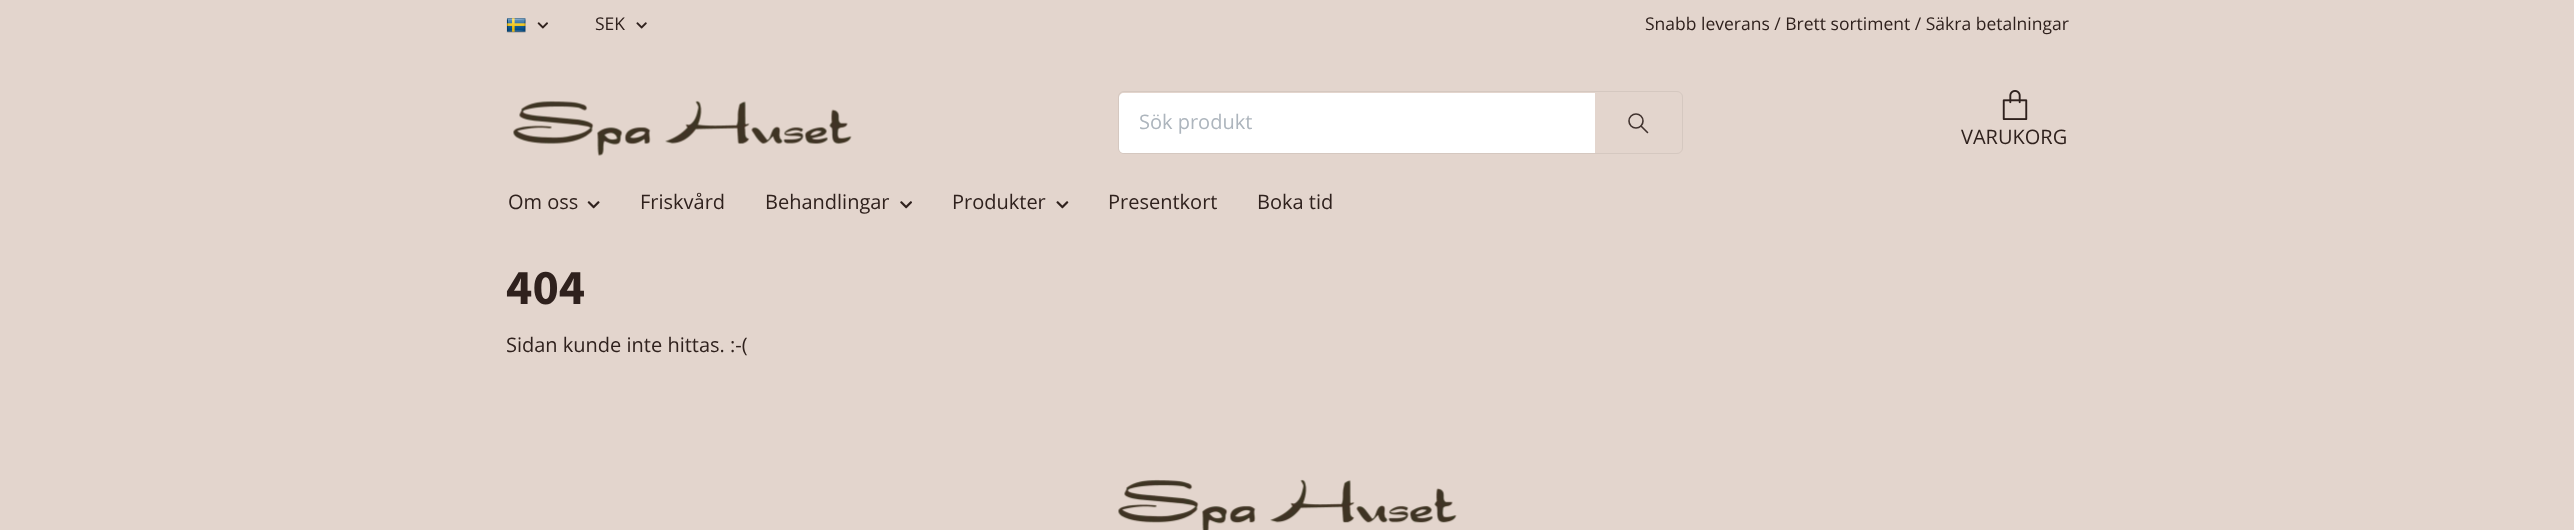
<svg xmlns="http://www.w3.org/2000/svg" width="2574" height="530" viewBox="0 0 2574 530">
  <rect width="100%" height="100%" fill="#e3d5cd"/>
  <image x="506" y="18" width="20" height="15" href="img1.png"/>
  <image x="537" y="22" width="11" height="7" href="img2.png"/>
  <text x="595" y="30" font-family="Open Sans" font-size="17.5" fill="#2f211d">SEK</text>
  <image x="636" y="22" width="11" height="7" href="img3.png"/>
  <text x="1645" y="30" font-family="Open Sans" font-size="17.5" fill="#2f211d">Snabb leverans / Brett sortiment / Säkra betalningar</text>
  <image x="513" y="100" width="339" height="56" href="img4.png"/>
  <rect x="1118.5" y="91.5" width="564" height="62" rx="5.5" fill="none" stroke="#d5c8c0"/>
  <path d="M1124 93H1595V153H1124C1121 153 1119 151 1119 148V98C1119 95 1121 93 1124 93Z" fill="#ffffff"/>
  <text x="1139" y="129" font-family="Open Sans" font-size="20" fill="#adb5bd">Sök produkt</text>
  <path d="M1641 126L1647.5 132.5" fill="none" stroke="#41332f" stroke-width="1.6" stroke-linecap="round" stroke-linejoin="round"/>
  <circle cx="1636" cy="121" r="7" fill="none" stroke="#41332f" stroke-width="1.6"/>
  <image x="2002" y="90" width="26" height="30" href="img5.png"/>
  <text x="1961" y="144" font-family="Open Sans" font-size="20" fill="#2f211d">VARUKORG</text>
  <text x="508" y="209" font-family="Open Sans" font-size="20" fill="#2f211d">Om oss</text>
  <image x="587" y="201" width="13" height="8" href="img6.png"/>
  <text x="640" y="209" font-family="Open Sans" font-size="20" fill="#2f211d">Friskvård</text>
  <text x="765" y="209" font-family="Open Sans" font-size="20" fill="#2f211d">Behandlingar</text>
  <image x="900" y="201" width="12" height="8" href="img7.png"/>
  <text x="952" y="209" font-family="Open Sans" font-size="20" fill="#2f211d">Produkter</text>
  <image x="1056" y="201" width="13" height="8" href="img8.png"/>
  <text x="1108" y="209" font-family="Open Sans" font-size="20" fill="#2f211d">Presentkort</text>
  <text x="1257" y="209" font-family="Open Sans" font-size="20" fill="#2f211d">Boka tid</text>
  <text x="506" y="304" font-family="Source Sans Pro" font-size="50" font-weight="bold" fill="#2f211d">404</text>
  <text x="506" y="352" font-family="Open Sans" font-size="20" fill="#2f211d">Sidan kunde inte hittas. :-(</text>
  <image x="1118" y="479" width="339" height="51" href="img9.png"/>
</svg>
